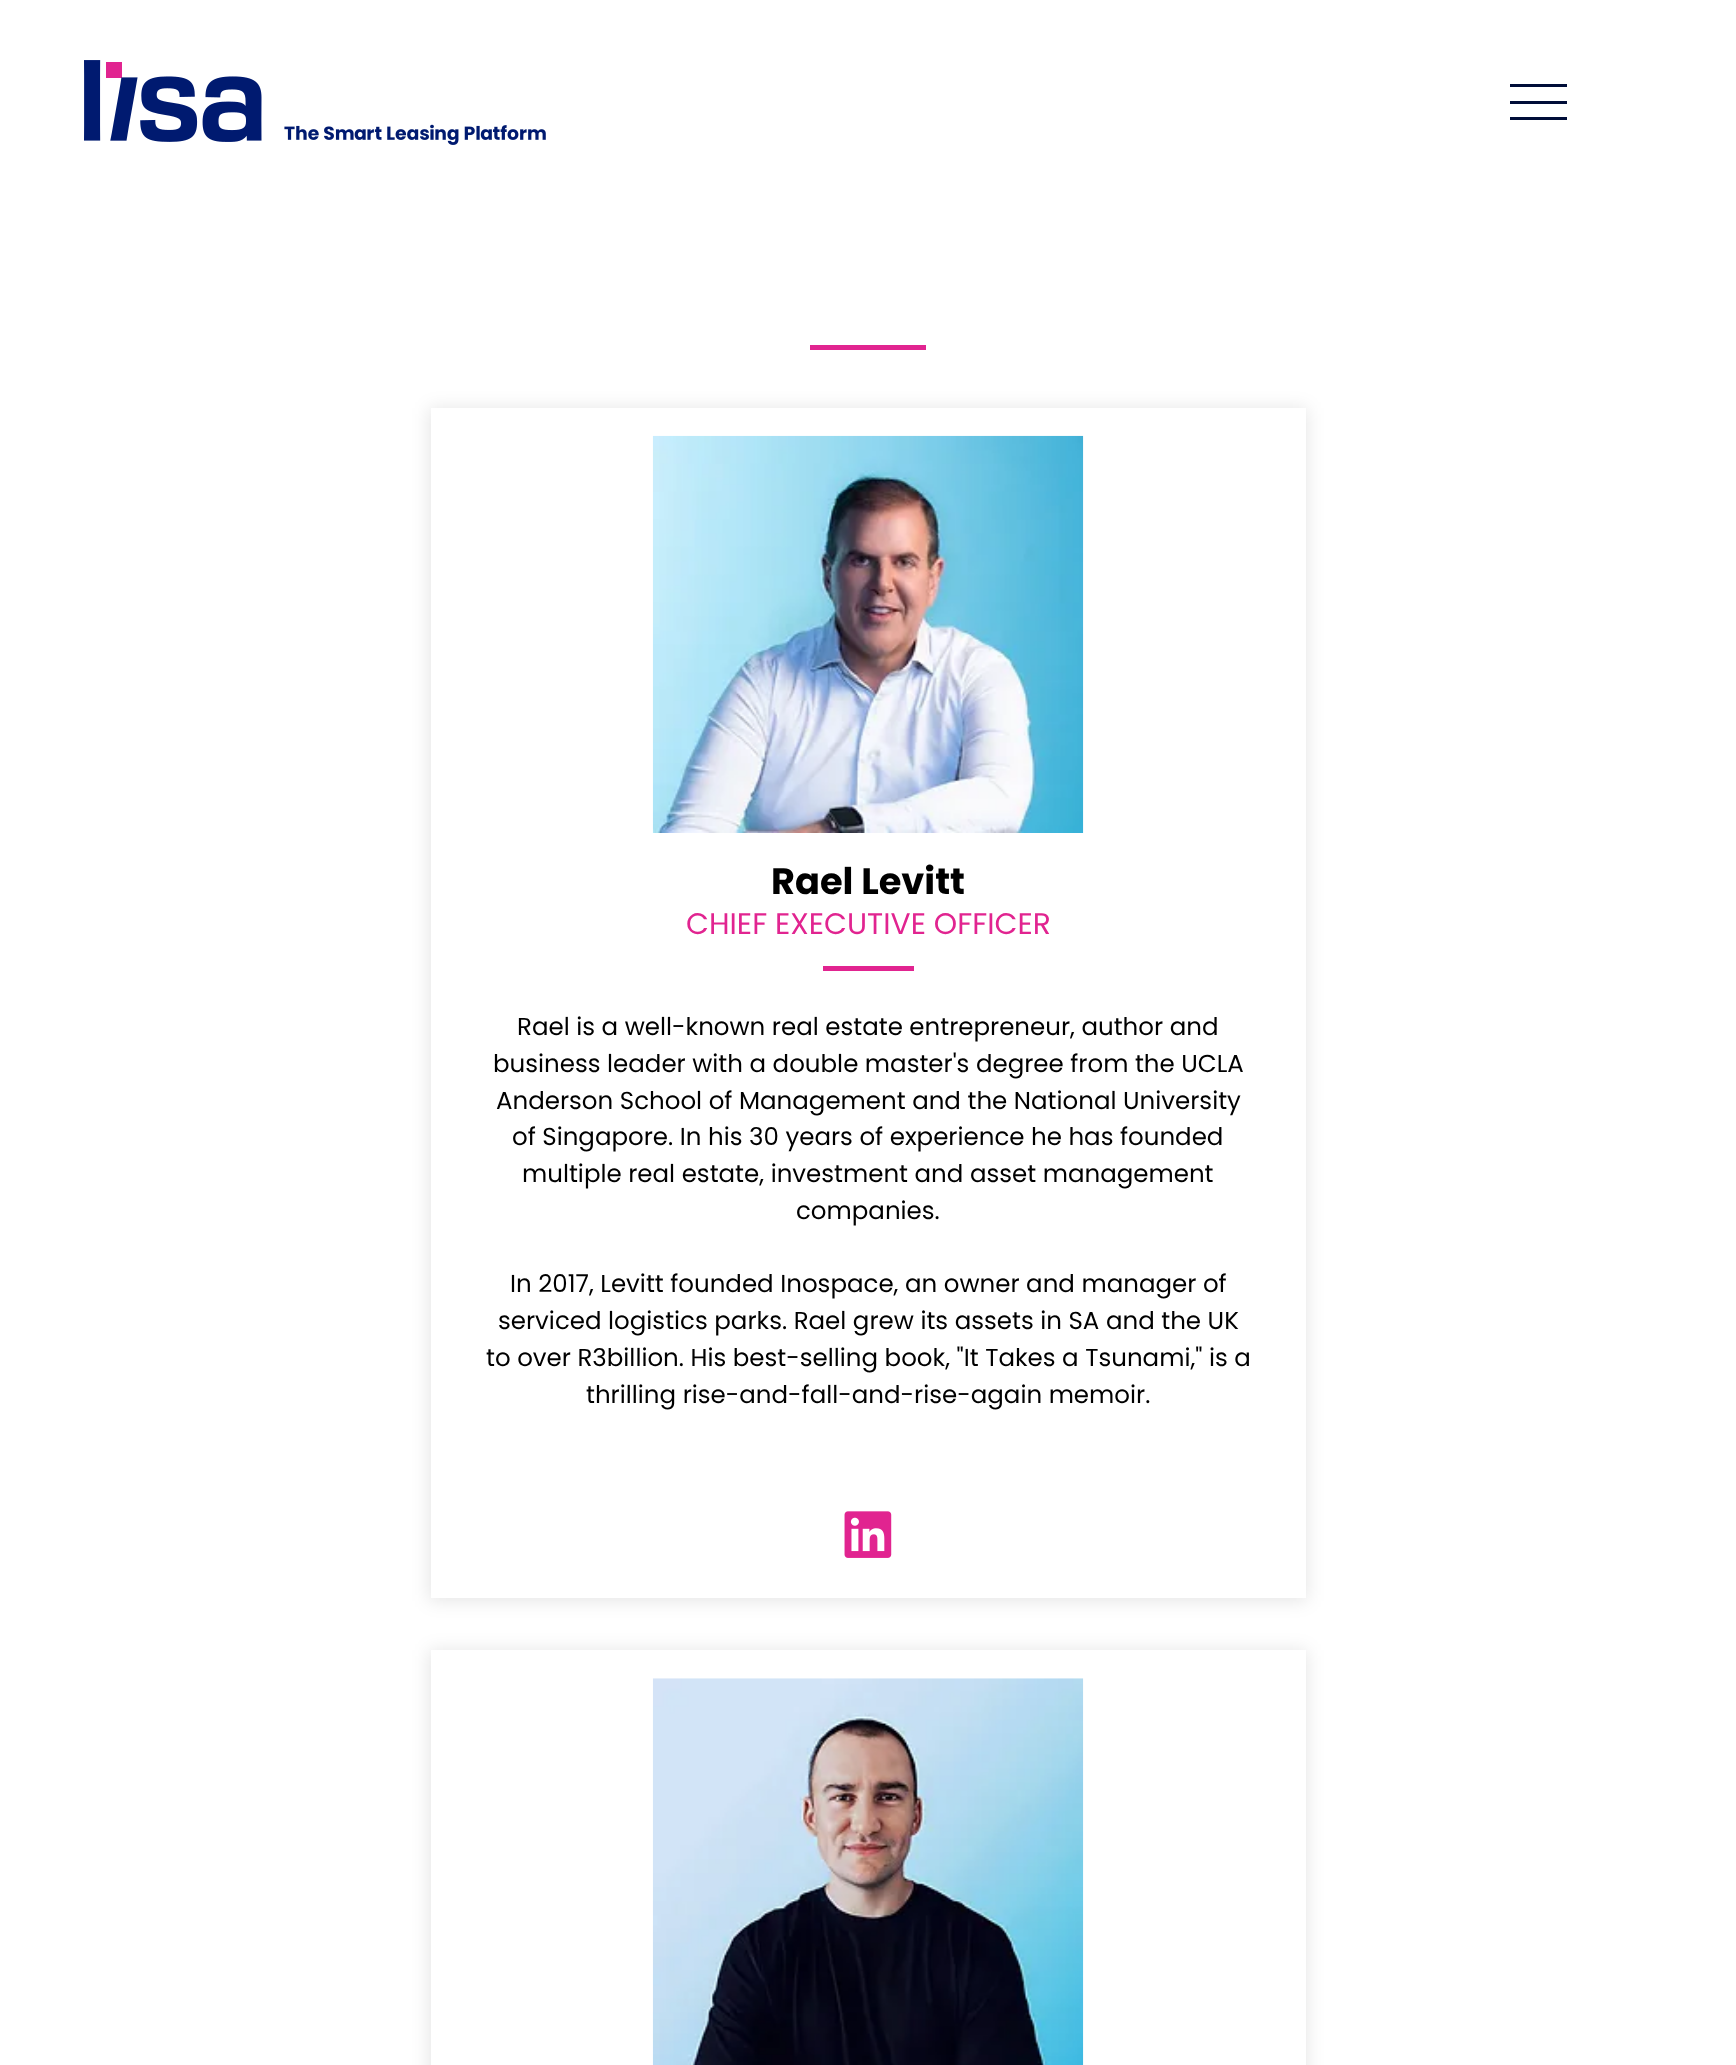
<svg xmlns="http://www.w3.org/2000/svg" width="1736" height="2065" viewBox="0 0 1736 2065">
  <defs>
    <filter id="blur1" x="-50%" y="-200%" width="200%" height="500%"><feGaussianBlur stdDeviation="9"/></filter>
  </defs>
  <rect width="100%" height="100%" fill="#ffffff"/>
  <image x="84" y="60" width="462" height="85" href="img1.png"/>
  <rect x="1510" y="84" width="57" height="3" fill="#000d38"/>
  <rect x="1510" y="101" width="57" height="3" fill="#000d38"/>
  <rect x="1510" y="117" width="57" height="3" fill="#000d38"/>
  <rect x="810" y="345" width="116" height="5" fill="#e12490"/>
  <rect x="429" y="408" width="878" height="1193" fill="#000000" fill-opacity="0.1" filter="url(#blur1)"/>
  <rect x="431" y="408" width="875" height="1190" fill="#ffffff"/>
  <image x="652" y="435" width="432" height="398" href="img2.png"/>
  <text x="771" y="894" font-family="Poppins" font-size="36.75" font-weight="bold" fill="#000000">Rael Levitt</text>
  <text x="686" y="934" font-family="Poppins" font-size="29.75" fill="#e12490">CHIEF EXECUTIVE OFFICER</text>
  <rect x="823" y="966" width="91" height="5" fill="#e12490"/>
  <text x="517" y="1035" font-family="Poppins" font-size="24.5" fill="#000000">Rael is a well-known real estate entrepreneur, author and</text>
  <text x="493" y="1072" font-family="Poppins" font-size="24.5" fill="#000000">business leader with a double master's degree from the UCLA</text>
  <text x="496" y="1109" font-family="Poppins" font-size="24.5" fill="#000000">Anderson School of Management and the National University</text>
  <text x="512" y="1145" font-family="Poppins" font-size="24.5" fill="#000000">of Singapore. In his 30 years of experience he has founded</text>
  <text x="522" y="1182" font-family="Poppins" font-size="24.5" fill="#000000">multiple real estate, investment and asset management</text>
  <text x="796" y="1219" font-family="Poppins" font-size="24.5" fill="#000000">companies.</text>
  <text x="510" y="1292" font-family="Poppins" font-size="24.5" fill="#000000">In 2017, Levitt founded Inospace, an owner and manager of</text>
  <text x="498" y="1329" font-family="Poppins" font-size="24.5" fill="#000000">serviced logistics parks. Rael grew its assets in SA and the UK</text>
  <text x="486" y="1366" font-family="Poppins" font-size="24.5" fill="#000000">to over R3billion. His best-selling book, "It Takes a Tsunami," is a</text>
  <text x="586" y="1403" font-family="Poppins" font-size="24.5" fill="#000000">thrilling rise-and-fall-and-rise-again memoir.</text>
  <image x="844" y="1511" width="48" height="47" href="img3.png"/>
  <rect x="429" y="1650" width="878" height="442" fill="#000000" fill-opacity="0.1" filter="url(#blur1)"/>
  <rect x="431" y="1650" width="875" height="415" fill="#ffffff"/>
  <image x="652" y="1678" width="432" height="387" href="img4.png"/>
</svg>
